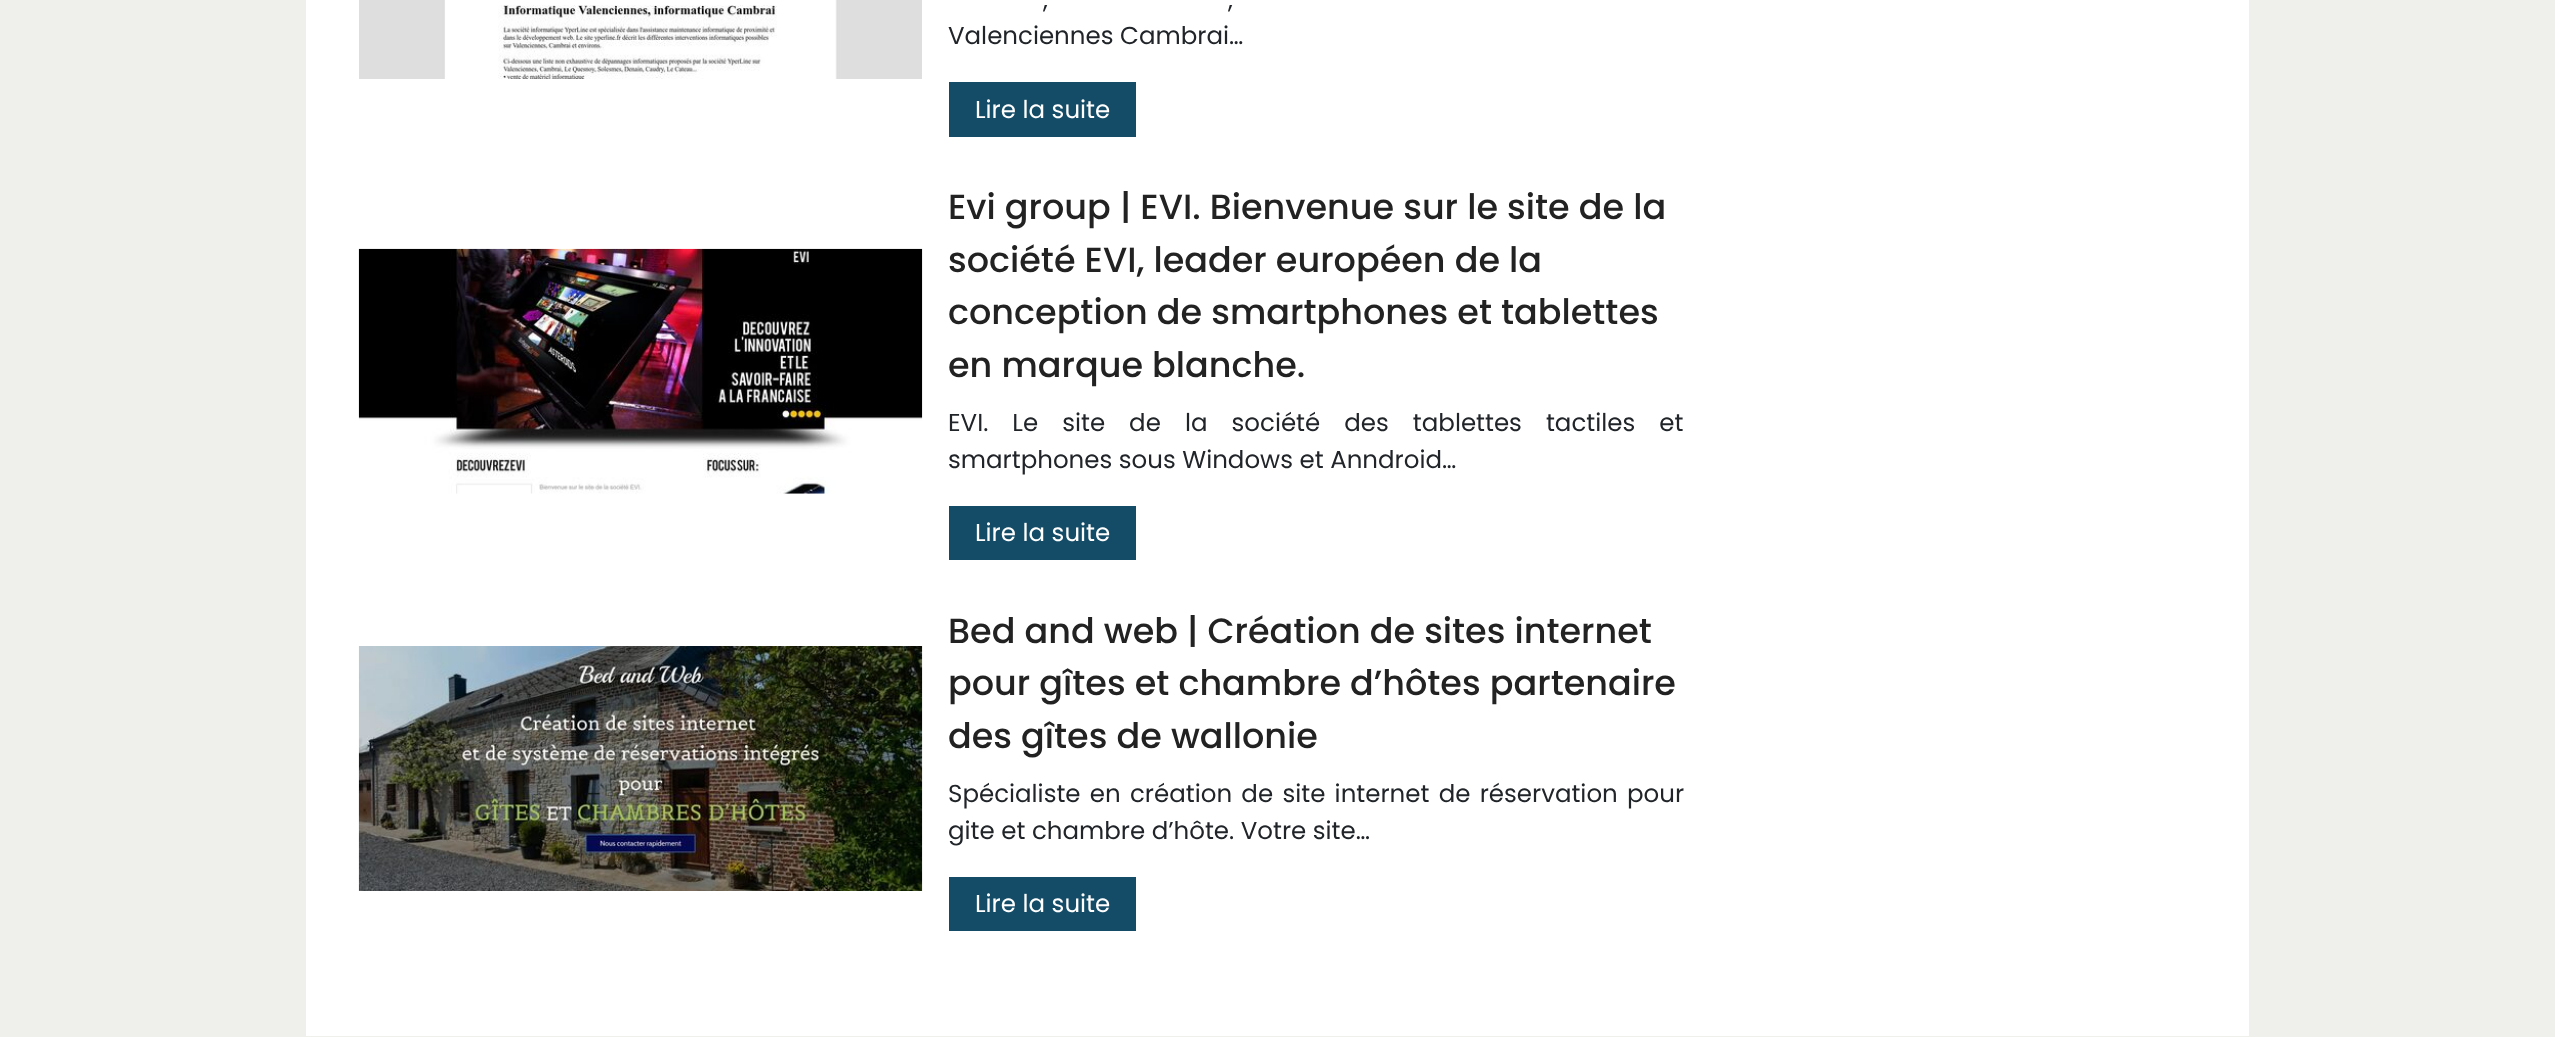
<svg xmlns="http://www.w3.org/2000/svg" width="2555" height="1037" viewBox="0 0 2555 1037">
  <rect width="100%" height="100%" fill="#efefeb"/>
  <rect x="306" y="0" width="1943" height="1036" fill="#ffffff"/>
  <image x="359" y="0" width="563" height="79" href="img1.png"/>
  <text x="1043" y="8" word-spacing="8" font-family="Poppins" font-size="24.5" fill="#212529">,</text>
  <text x="1228" y="8" word-spacing="8" font-family="Poppins" font-size="24.5" fill="#212529">,</text>
  <text x="948" y="44" font-family="Poppins" font-size="24.5" fill="#212529">Valenciennes Cambrai…</text>
  <rect x="949" y="82" width="187" height="55" fill="#144c67"/>
  <text x="975" y="118" font-family="Poppins" font-size="24.5" fill="#ffffff">Lire la suite</text>
  <image x="358" y="248" width="565" height="246" href="img2.png"/>
  <text x="948" y="219" font-family="Poppins" font-size="35" font-weight="500" fill="#222222">Evi group | EVI. Bienvenue sur le site de la</text>
  <text x="948" y="272" font-family="Poppins" font-size="35" font-weight="500" fill="#222222">société EVI, leader européen de la</text>
  <text x="948" y="324" font-family="Poppins" font-size="35" font-weight="500" fill="#222222">conception de smartphones et tablettes</text>
  <text x="948" y="377" font-family="Poppins" font-size="35" font-weight="500" fill="#222222">en marque blanche.</text>
  <text x="948" y="431" word-spacing="17.5" font-family="Poppins" font-size="24.5" fill="#212529">EVI. Le site de la société des tablettes tactiles et</text>
  <text x="948" y="468" font-family="Poppins" font-size="24.5" fill="#212529">smartphones sous Windows et Anndroid…</text>
  <rect x="949" y="506" width="187" height="54" fill="#144c67"/>
  <text x="975" y="541" font-family="Poppins" font-size="24.5" fill="#ffffff">Lire la suite</text>
  <image x="358" y="646" width="565" height="245" href="img3.png"/>
  <text x="948" y="643" font-family="Poppins" font-size="35" font-weight="500" fill="#222222">Bed and web | Création de sites internet</text>
  <text x="948" y="695" font-family="Poppins" font-size="35" font-weight="500" fill="#222222">pour gîtes et chambre d’hôtes partenaire</text>
  <text x="948" y="748" font-family="Poppins" font-size="35" font-weight="500" fill="#222222">des gîtes de wallonie</text>
  <text x="948" y="802" word-spacing="2.75" font-family="Poppins" font-size="24.5" fill="#212529">Spécialiste en création de site internet de réservation pour</text>
  <text x="948" y="839" font-family="Poppins" font-size="24.5" fill="#212529">gite et chambre d’hôte. Votre site…</text>
  <rect x="949" y="877" width="187" height="54" fill="#144c67"/>
  <text x="975" y="912" font-family="Poppins" font-size="24.5" fill="#ffffff">Lire la suite</text>
</svg>
